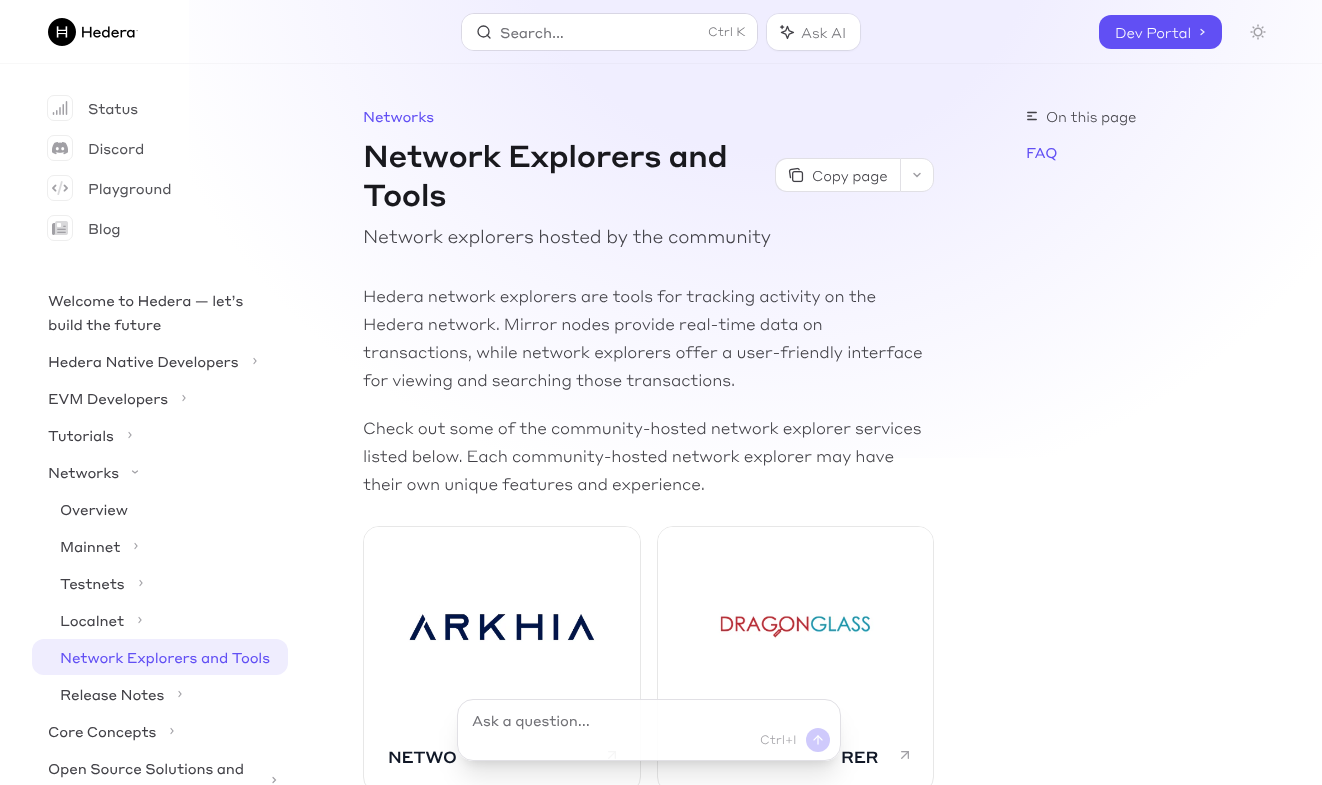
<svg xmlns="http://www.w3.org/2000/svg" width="1322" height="785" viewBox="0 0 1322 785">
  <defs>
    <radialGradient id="g1" gradientUnits="userSpaceOnUse" cx="0" cy="0" r="1" gradientTransform="matrix(656 0 0 584 780 -74)"><stop offset="0.39" stop-color="#f0eeff"/><stop offset="1" stop-color="#ffffff"/></radialGradient>
    <filter id="blur1" x="-50%" y="-200%" width="200%" height="500%"><feGaussianBlur stdDeviation="1"/></filter>
    <radialGradient id="g2" gradientUnits="userSpaceOnUse" cx="0" cy="0" r="1" gradientTransform="matrix(656 0 0 584 780 -74)"><stop offset="0.39" stop-color="#eae8f8"/><stop offset="1" stop-color="#f8f8f8"/></radialGradient>
    <clipPath id="clip1"><path d="M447 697H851V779H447ZM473 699H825C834 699 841 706 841 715V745C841 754 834 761 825 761H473C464 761 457 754 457 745V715C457 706 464 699 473 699Z" clip-rule="evenodd"/></clipPath>
    <filter id="blur2" x="-50%" y="-200%" width="200%" height="500%"><feGaussianBlur stdDeviation="5"/></filter>
    <clipPath id="clip2"><path d="M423 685H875V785H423ZM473 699H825C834 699 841 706 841 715V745C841 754 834 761 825 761H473C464 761 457 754 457 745V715C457 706 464 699 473 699Z" clip-rule="evenodd"/></clipPath>
    <filter id="blur3" x="-50%" y="-200%" width="200%" height="500%"><feGaussianBlur stdDeviation="12.5"/></filter>
  </defs>
  <rect width="100%" height="100%" fill="#ffffff"/>
  <image x="48" y="18" width="90" height="28" href="img1.png"/>
  <rect x="189" y="0" width="1133" height="458" fill="url(#g1)"/>
  <rect x="461.5" y="13.5" width="296" height="37" rx="12.5" fill="none" stroke="#a1a0a5" stroke-opacity="0.3"/>
  <rect x="462" y="14" width="295" height="36" rx="12" fill="#ffffff"/>
  <circle cx="483.5" cy="31.5" r="5.5" fill="none" stroke="#414046" stroke-width="1.3"/>
  <path d="M490 38L487 35" fill="none" stroke="#414046" stroke-width="1.3" stroke-linecap="round" stroke-linejoin="round"/>
  <text x="500" y="38" font-family="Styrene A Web" font-size="14" letter-spacing="-0.15" fill="#727277">Search...</text>
  <text x="708" y="36" font-family="Styrene A Web" font-size="12" font-weight="300" fill="#727277">Ctrl K</text>
  <rect x="767" y="15" width="93" height="36" rx="12" fill="#000000" fill-opacity="0.05" filter="url(#blur1)"/>
  <rect x="766.5" y="13.5" width="94" height="37" rx="12.5" fill="none" stroke="#a1a0a5" stroke-opacity="0.2"/>
  <rect x="767" y="14" width="93" height="36" rx="12" fill="#ffffff"/>
  <image x="779" y="24" width="16" height="16" href="img2.png"/>
  <text x="801" y="38" font-family="Styrene A Web" font-size="14" font-weight="300" letter-spacing="-0.15" fill="#727277">Ask AI</text>
  <rect x="1099" y="15" width="123" height="34" rx="12" fill="#614ff4"/>
  <text x="1115" y="38" font-family="Styrene A Web" font-size="14" font-weight="300" letter-spacing="-0.15" fill="#ffffff">Dev Portal</text>
  <path d="M1201 29.5L1204 32L1201 34.5" fill="none" stroke="#efedfe" stroke-width="1.2" stroke-linecap="round"/>
  <image x="1250" y="24" width="16" height="16" href="img3.png"/>
  <rect x="47.5" y="95.5" width="25" height="25" rx="6.5" fill="none" stroke="#eeeeee"/>
  <image x="52" y="101" width="16" height="14" href="img4.png"/>
  <text x="88" y="114" font-family="Styrene A Web" font-size="14" letter-spacing="-0.15" fill="#525257">Status</text>
  <rect x="47.5" y="135.5" width="25" height="25" rx="6.5" fill="none" stroke="#eeeeee"/>
  <image x="52" y="142" width="16" height="13" href="img5.png"/>
  <text x="88" y="154" font-family="Styrene A Web" font-size="14" letter-spacing="-0.15" fill="#525257">Discord</text>
  <rect x="47.5" y="175.5" width="25" height="25" rx="6.5" fill="none" stroke="#eeeeee"/>
  <image x="52" y="181" width="16" height="14" href="img6.png"/>
  <text x="88" y="194" font-family="Styrene A Web" font-size="14" letter-spacing="-0.15" fill="#525257">Playground</text>
  <rect x="47.5" y="215.5" width="25" height="25" rx="6.5" fill="none" stroke="#eeeeee"/>
  <image x="52" y="221" width="16" height="14" href="img7.png"/>
  <text x="88" y="234" font-family="Styrene A Web" font-size="14" letter-spacing="-0.15" fill="#525257">Blog</text>
  <text x="48" y="306" font-family="Styrene A Web" font-size="14" letter-spacing="-0.15" fill="#414046">Welcome to Hedera — let’s</text>
  <text x="48" y="330" font-family="Styrene A Web" font-size="14" letter-spacing="-0.15" fill="#414046">build the future</text>
  <text x="48" y="367" font-family="Styrene A Web" font-size="14" letter-spacing="-0.15" fill="#414046">Hedera Native Developers</text>
  <path d="M254 358.5L256 361L254 363.5" fill="none" stroke="#a1a0a5" stroke-width="1.2" stroke-linecap="round"/>
  <text x="48" y="404" font-family="Styrene A Web" font-size="14" letter-spacing="-0.15" fill="#414046">EVM Developers</text>
  <path d="M183 395.5L185 398L183 400.5M129 432.5L131 435L129 437.5" fill="none" stroke="#a1a0a5" stroke-width="1.2" stroke-linecap="round"/>
  <text x="48" y="441" font-family="Styrene A Web" font-size="14" letter-spacing="-0.15" fill="#414046">Tutorials</text>
  <text x="48" y="478" font-family="Styrene A Web" font-size="14" letter-spacing="-0.15" fill="#414046">Networks</text>
  <path d="M137.5 471L135 473L132.5 471" fill="none" stroke="#a1a0a5" stroke-width="1.2" stroke-linecap="round"/>
  <text x="60" y="515" font-family="Styrene A Web" font-size="14" letter-spacing="-0.15" fill="#414046">Overview</text>
  <text x="60" y="552" font-family="Styrene A Web" font-size="14" letter-spacing="-0.15" fill="#414046">Mainnet</text>
  <path d="M135 543.5L137 546L135 548.5M140 580.5L142 583L140 585.5" fill="none" stroke="#a1a0a5" stroke-width="1.2" stroke-linecap="round"/>
  <text x="60" y="589" font-family="Styrene A Web" font-size="14" letter-spacing="-0.15" fill="#414046">Testnets</text>
  <text x="60" y="626" font-family="Styrene A Web" font-size="14" letter-spacing="-0.15" fill="#414046">Localnet</text>
  <path d="M139 617.5L141 620L139 622.5" fill="none" stroke="#a1a0a5" stroke-width="1.2" stroke-linecap="round"/>
  <rect x="32" y="639" width="256" height="36" rx="12" fill="#efedfe"/>
  <text x="60" y="663" font-family="Styrene A Web" font-size="14" letter-spacing="-0.15" fill="#614ff4">Network Explorers and Tools</text>
  <text x="60" y="700" font-family="Styrene A Web" font-size="14" letter-spacing="-0.15" fill="#414046">Release Notes</text>
  <path d="M179 691.5L181 694L179 696.5M171 728.5L173 731L171 733.5" fill="none" stroke="#a1a0a5" stroke-width="1.2" stroke-linecap="round"/>
  <text x="48" y="737" font-family="Styrene A Web" font-size="14" letter-spacing="-0.15" fill="#414046">Core Concepts</text>
  <text x="48" y="774" font-family="Styrene A Web" font-size="14" letter-spacing="-0.15" fill="#414046">Open Source Solutions and</text>
  <path d="M273 777.5L275.5 780L273 782.5" fill="none" stroke="#a1a0a5" stroke-width="1.2" stroke-linecap="round"/>
  <rect x="0" y="63" width="1322" height="1" fill="url(#g2)"/>
  <text x="363" y="122" font-family="Styrene A Web" font-size="14" letter-spacing="-0.15" fill="#614ff4">Networks</text>
  <text x="363" y="167" font-family="Styrene A Web" font-size="30" font-weight="500" letter-spacing="-0.45" fill="#19191e">Network Explorers and</text>
  <text x="363" y="206" font-family="Styrene A Web" font-size="30" font-weight="500" letter-spacing="-0.45" fill="#19191e">Tools</text>
  <path d="M787 159H900V191H787C781 191 776 186 776 180V170C776 164 781 159 787 159Z" fill="#ffffff"/>
  <path d="M787 158H900V192H787C780 192 775 187 775 180V170C775 163 780 158 787 158ZM787 159H900V191H787C781 191 776 186 776 180V170C776 164 781 159 787 159Z" fill="#e1e0e5" fill-rule="evenodd"/>
  <image x="788" y="167" width="16" height="16" href="img8.png"/>
  <text x="812" y="181" font-family="Styrene A Web" font-size="14" font-weight="300" letter-spacing="-0.15" fill="#414046">Copy page</text>
  <path d="M900.5 158.5H922C928.5 158.5 933.5 163.5 933.5 170V180C933.5 186.5 928.5 191.5 922 191.5H900.5Z" fill="#ffffff" stroke="#e1e0e5"/>
  <path d="M920 173.5L917 176.5L914 173.5" fill="none" stroke="#a1a0a5" stroke-width="1.5" stroke-linecap="round"/>
  <text x="363" y="243" font-family="Styrene A Web" font-size="18" font-weight="300" letter-spacing="-0.2" fill="#414046">Network explorers hosted by the community</text>
  <text x="363" y="302" font-family="Styrene A Web" font-size="16" font-weight="300" letter-spacing="-0.15" fill="#414046">Hedera network explorers are tools for tracking activity on the</text>
  <text x="363" y="330" font-family="Styrene A Web" font-size="16" font-weight="300" letter-spacing="-0.15" fill="#414046">Hedera network. Mirror nodes provide real-time data on</text>
  <text x="363" y="358" word-spacing="0.25" font-family="Styrene A Web" font-size="16" font-weight="300" letter-spacing="-0.15" fill="#414046">transactions, while network explorers offer a user-friendly interface</text>
  <text x="363" y="386" font-family="Styrene A Web" font-size="16" font-weight="300" letter-spacing="-0.15" fill="#414046">for viewing and searching those transactions.</text>
  <text x="363" y="434" font-family="Styrene A Web" font-size="16" font-weight="300" letter-spacing="-0.15" fill="#414046">Check out some of the community-hosted network explorer services</text>
  <text x="363" y="462" font-family="Styrene A Web" font-size="16" font-weight="300" letter-spacing="-0.15" fill="#414046">listed below. Each community-hosted network explorer may have</text>
  <text x="363" y="490" font-family="Styrene A Web" font-size="16" font-weight="300" letter-spacing="-0.15" fill="#414046">their own unique features and experience.</text>
  <rect x="363.5" y="526.5" width="277" height="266" rx="15.5" fill="none" stroke="#e7e7e7"/>
  <image x="364" y="527" width="276" height="115" href="img9.png"/>
  <text x="388" y="763" font-family="Styrene A Web" font-size="16" font-weight="500" letter-spacing="-0.25" fill="#111827">NETWO</text>
  <image x="608" y="751" width="8" height="8" href="img10.png"/>
  <rect x="657.5" y="526.5" width="276" height="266" rx="15.5" fill="none" stroke="#e7e7e7"/>
  <image x="658" y="527" width="275" height="112" href="img11.png"/>
  <text x="841" y="763" font-family="Styrene A Web" font-size="16" font-weight="500" letter-spacing="-0.25" fill="#111827">RER</text>
  <image x="901" y="751" width="8" height="8" href="img10.png"/>
  <g clip-path="url(#clip1)">
    <rect x="463" y="713" width="372" height="50" rx="10" fill="#000000" fill-opacity="0.1" filter="url(#blur2)"/>
  </g>
  <g clip-path="url(#clip2)">
    <rect x="462" y="724" width="374" height="52" rx="11" fill="#000000" fill-opacity="0.1" filter="url(#blur3)"/>
  </g>
  <rect x="457.5" y="699.5" width="383" height="61" rx="15.5" fill="#ffffff" fill-opacity="0.9" stroke="#e1e0e5"/>
  <text x="472" y="726" font-family="Styrene A Web" font-size="14" letter-spacing="-0.15" fill="#727277">Ask a question...</text>
  <text x="760" y="744" font-family="Styrene A Web" font-size="12" font-weight="300" fill="#a1a0a5">Ctrl+I</text>
  <circle cx="818" cy="740" r="12" fill="#614ff4" fill-opacity="0.3"/>
  <image x="813" y="735" width="10" height="10" href="img12.png"/>
  <image x="1027" y="111" width="10" height="10" href="img13.png"/>
  <text x="1046" y="122" font-family="Styrene A Web" font-size="14" font-weight="300" letter-spacing="-0.15" fill="#414046">On this page</text>
  <text x="1026" y="158" font-family="Styrene A Web" font-size="14" letter-spacing="-0.15" fill="#614ff4">FAQ</text>
</svg>
